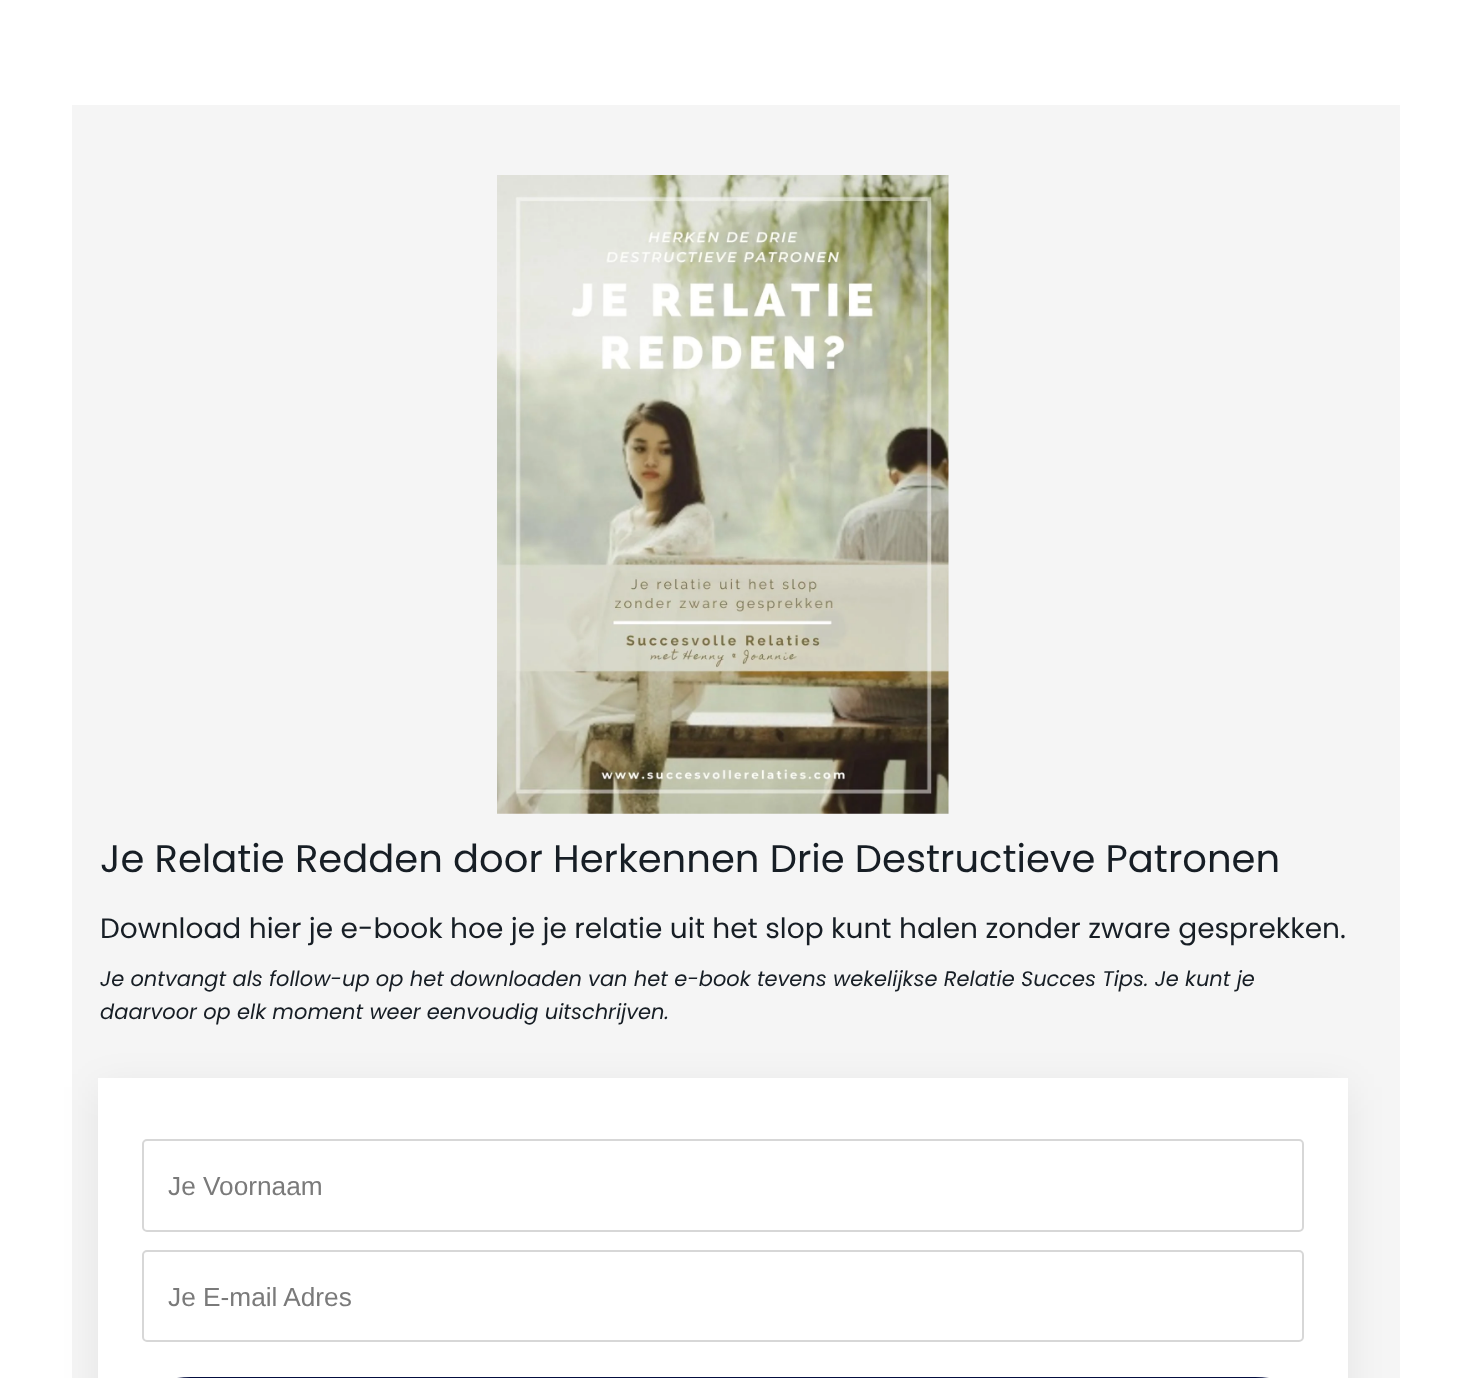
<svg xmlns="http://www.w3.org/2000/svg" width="1471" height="1378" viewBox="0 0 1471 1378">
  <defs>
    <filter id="blur1" x="-50%" y="-200%" width="200%" height="500%"><feGaussianBlur stdDeviation="19"/></filter>
  </defs>
  <rect width="100%" height="100%" fill="#ffffff"/>
  <rect x="72" y="105" width="1328" height="1273" fill="#f5f5f5"/>
  <image x="497" y="175" width="452" height="639" href="img1.png"/>
  <text x="100" y="872" font-family="Poppins" font-size="38.5" fill="#171e25">Je Relatie Redden door Herkennen Drie Destructieve Patronen</text>
  <text x="100" y="938" font-family="Poppins" font-size="28" fill="#171e25">Download hier je e-book hoe je je relatie uit het slop kunt halen zonder zware gesprekken.</text>
  <text x="100" y="986" font-family="Poppins" font-size="21" font-style="italic" fill="#171e25">Je ontvangt als follow-up op het downloaden van het e-book tevens wekelijkse Relatie Succes Tips. Je kunt je</text>
  <text x="100" y="1019" font-family="Poppins" font-size="21" font-style="italic" fill="#171e25">daarvoor op elk moment weer eenvoudig uitschrijven.</text>
  <rect x="98" y="1087" width="1250" height="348" fill="#000000" fill-opacity="0.07" filter="url(#blur1)"/>
  <rect x="98" y="1078" width="1250" height="300" fill="#ffffff"/>
  <rect x="143" y="1140" width="1160" height="91" rx="4" fill="none" stroke="#d7d7d7" stroke-width="2"/>
  <text x="168" y="1195" font-family="Liberation Sans" font-size="26.25" fill="#7a7a7a">Je Voornaam</text>
  <rect x="143" y="1251" width="1160" height="90" rx="4" fill="none" stroke="#d7d7d7" stroke-width="2"/>
  <text x="168" y="1306" font-family="Liberation Sans" font-size="26.25" fill="#7a7a7a">Je E-mail Adres</text>
  <rect x="142" y="1377" width="1162" height="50" rx="48.5" fill="#030d3f"/>
</svg>
